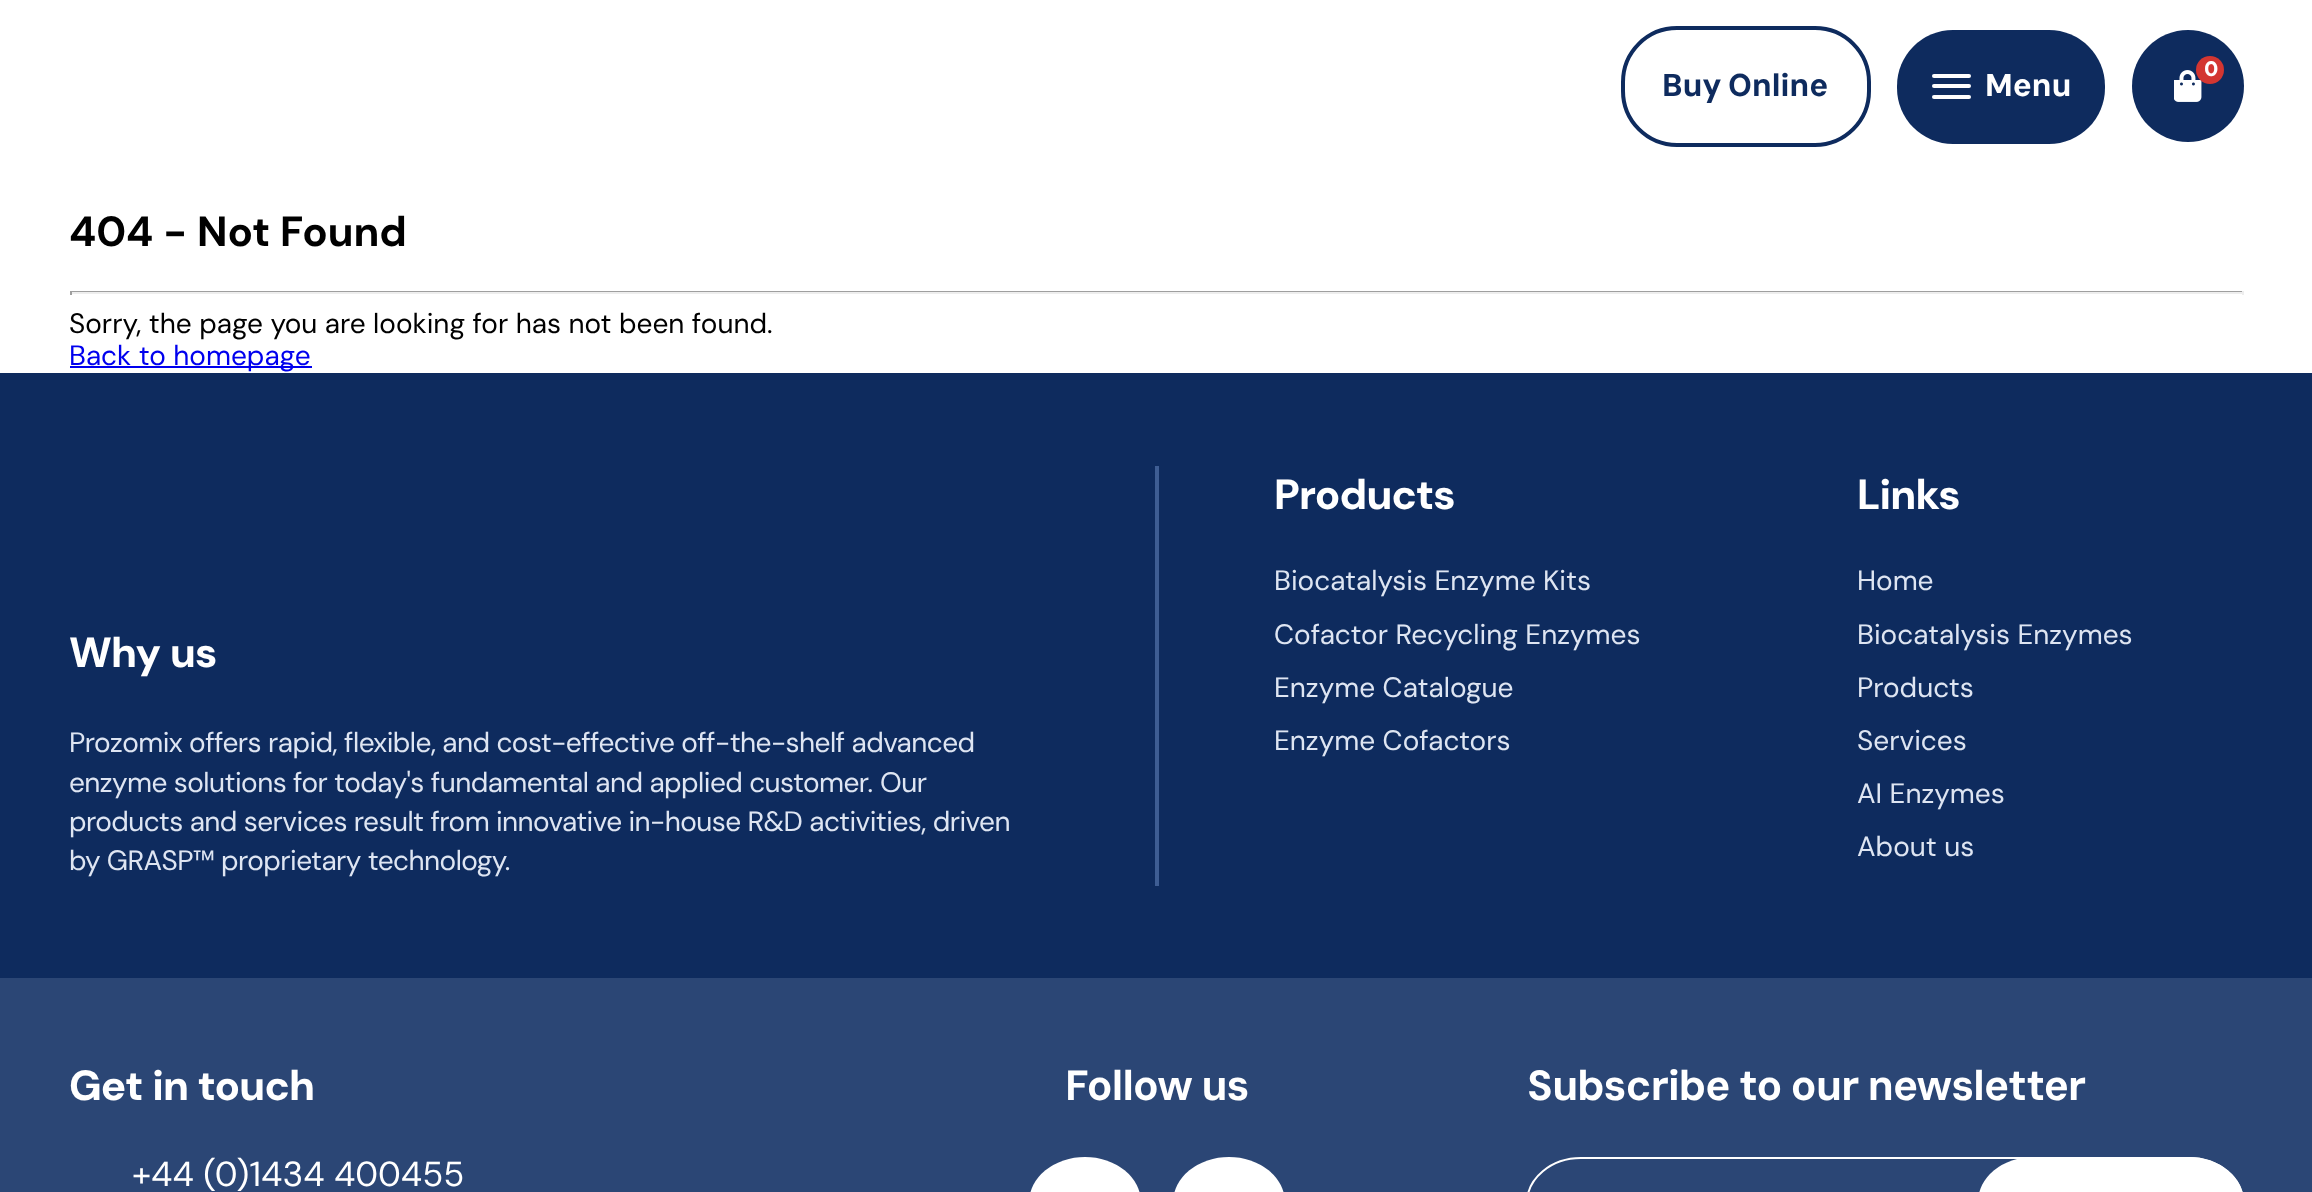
<svg xmlns="http://www.w3.org/2000/svg" width="2312" height="1192" viewBox="0 0 2312 1192">
  <rect width="100%" height="100%" fill="#ffffff"/>
  <circle cx="2188" cy="86" r="56" fill="#0e2b5e"/>
  <image x="2174" y="70" width="28" height="32" href="img1.png"/>
  <circle cx="2210" cy="70" r="14" fill="#d33631"/>
  <text x="2204" y="76" font-family="DM Sans" font-size="21" font-weight="900" fill="#ffffff">0</text>
  <rect x="1623" y="28" width="246" height="117" rx="54" fill="none" stroke="#0e2b5e" stroke-width="4"/>
  <text x="1662" y="96" word-spacing="-1" font-family="DM Sans" font-size="31.5" font-weight="800" fill="#0e2b5e">Buy Online</text>
  <rect x="1897" y="30" width="208" height="114" rx="56" fill="#0e2b5e"/>
  <rect x="1932" y="74" width="39" height="4" rx="2" fill="#ffffff"/>
  <rect x="1932" y="84" width="39" height="4" rx="2" fill="#ffffff"/>
  <rect x="1932" y="95" width="39" height="4" rx="2" fill="#ffffff"/>
  <text x="1985" y="96" font-family="DM Sans" font-size="31.5" font-weight="800" fill="#ffffff">Menu</text>
  <text x="69" y="246" font-family="'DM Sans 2'" font-size="42" font-weight="bold" fill="#000000">404 - Not Found</text>
  <rect x="70" y="291" width="2174" height="1" fill="#9f9f9f"/>
  <rect x="2242" y="291" width="2" height="4" fill="#eeeeee"/>
  <rect x="70" y="292" width="2174" height="2" fill="#eeeeee"/>
  <rect x="70" y="291" width="2" height="4" fill="#9f9f9f"/>
  <text x="69" y="333" font-family="DM Sans" font-size="28" fill="#000000">Sorry, the page you are looking for has not been found.</text>
  <rect x="70" y="366" width="242" height="2" fill="#0000ee"/>
  <text x="69" y="365" font-family="DM Sans" font-size="28" fill="#0000ee">Back to homepage</text>
  <rect x="0" y="373" width="2312" height="605" fill="#0e2b5e"/>
  <text x="69" y="667" word-spacing="1" font-family="'DM Sans 2'" font-size="42" font-weight="800" letter-spacing="-0.85" fill="#ffffff">Why us</text>
  <text x="69" y="752" font-family="DM Sans" font-size="28" letter-spacing="-0.55" fill="#dee5f2">Prozomix offers rapid, flexible, and cost-effective off-the-shelf advanced</text>
  <text x="69" y="792" font-family="DM Sans" font-size="28" letter-spacing="-0.55" fill="#dee5f2">enzyme solutions for today's fundamental and applied customer.</text>
  <text x="880" y="792" font-family="DM Sans" font-size="28" letter-spacing="-0.55" fill="#dee5f2">Our</text>
  <text x="69" y="831" font-family="DM Sans" font-size="28" letter-spacing="-0.55" fill="#dee5f2">products and services result from innovative in-house R&amp;D activities, driven</text>
  <text x="69" y="870" font-family="DM Sans" font-size="28" letter-spacing="-0.55" fill="#dee5f2">by GRASP™ proprietary technology.</text>
  <rect x="1155" y="466" width="4" height="420" fill="#3e5d93"/>
  <text x="1274" y="509" font-family="'DM Sans 2'" font-size="42" font-weight="800" letter-spacing="-0.85" fill="#ffffff">Products</text>
  <text x="1274" y="590" font-family="DM Sans" font-size="28" fill="#dee5f2">Biocatalysis Enzyme Kits</text>
  <text x="1274" y="644" font-family="DM Sans" font-size="28" fill="#dee5f2">Cofactor Recycling Enzymes</text>
  <text x="1274" y="697" font-family="DM Sans" font-size="28" fill="#dee5f2">Enzyme Catalogue</text>
  <text x="1274" y="750" font-family="DM Sans" font-size="28" fill="#dee5f2">Enzyme Cofactors</text>
  <text x="1857" y="509" font-family="'DM Sans 2'" font-size="42" font-weight="800" letter-spacing="-0.85" fill="#ffffff">Links</text>
  <text x="1857" y="590" font-family="DM Sans" font-size="28" fill="#dee5f2">Home</text>
  <text x="1857" y="644" font-family="DM Sans" font-size="28" fill="#dee5f2">Biocatalysis Enzymes</text>
  <text x="1857" y="697" font-family="DM Sans" font-size="28" fill="#dee5f2">Products</text>
  <text x="1857" y="750" font-family="DM Sans" font-size="28" fill="#dee5f2">Services</text>
  <text x="1857" y="803" font-family="DM Sans" font-size="28" fill="#dee5f2">AI Enzymes</text>
  <text x="1857" y="856" font-family="DM Sans" font-size="28" fill="#dee5f2">About us</text>
  <rect x="0" y="978" width="2312" height="214" fill="#2b4675"/>
  <text x="69" y="1100" word-spacing="1" font-family="'DM Sans 2'" font-size="42" font-weight="800" letter-spacing="-0.85" fill="#ffffff">Get in touch</text>
  <text x="132" y="1186" font-family="'DM Sans 2'" font-size="34.75" fill="#ffffff">+44 (0)1434 400455</text>
  <text x="1065" y="1100" font-family="DM Sans" font-size="42" font-weight="bold" letter-spacing="-0.85" fill="#ffffff">Follow us</text>
  <rect x="1029" y="1157" width="112" height="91" rx="56" fill="#ffffff"/>
  <rect x="1173" y="1157" width="112" height="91" rx="56" fill="#ffffff"/>
  <text x="1527" y="1100" font-family="DM Sans" font-size="42" font-weight="bold" letter-spacing="-0.85" fill="#ffffff">Subscribe to our newsletter</text>
  <rect x="1527" y="1158" width="716" height="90" rx="54" fill="none" stroke="#ffffff" stroke-width="2"/>
  <rect x="1978" y="1157" width="266" height="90" rx="55" fill="#ffffff"/>
</svg>
